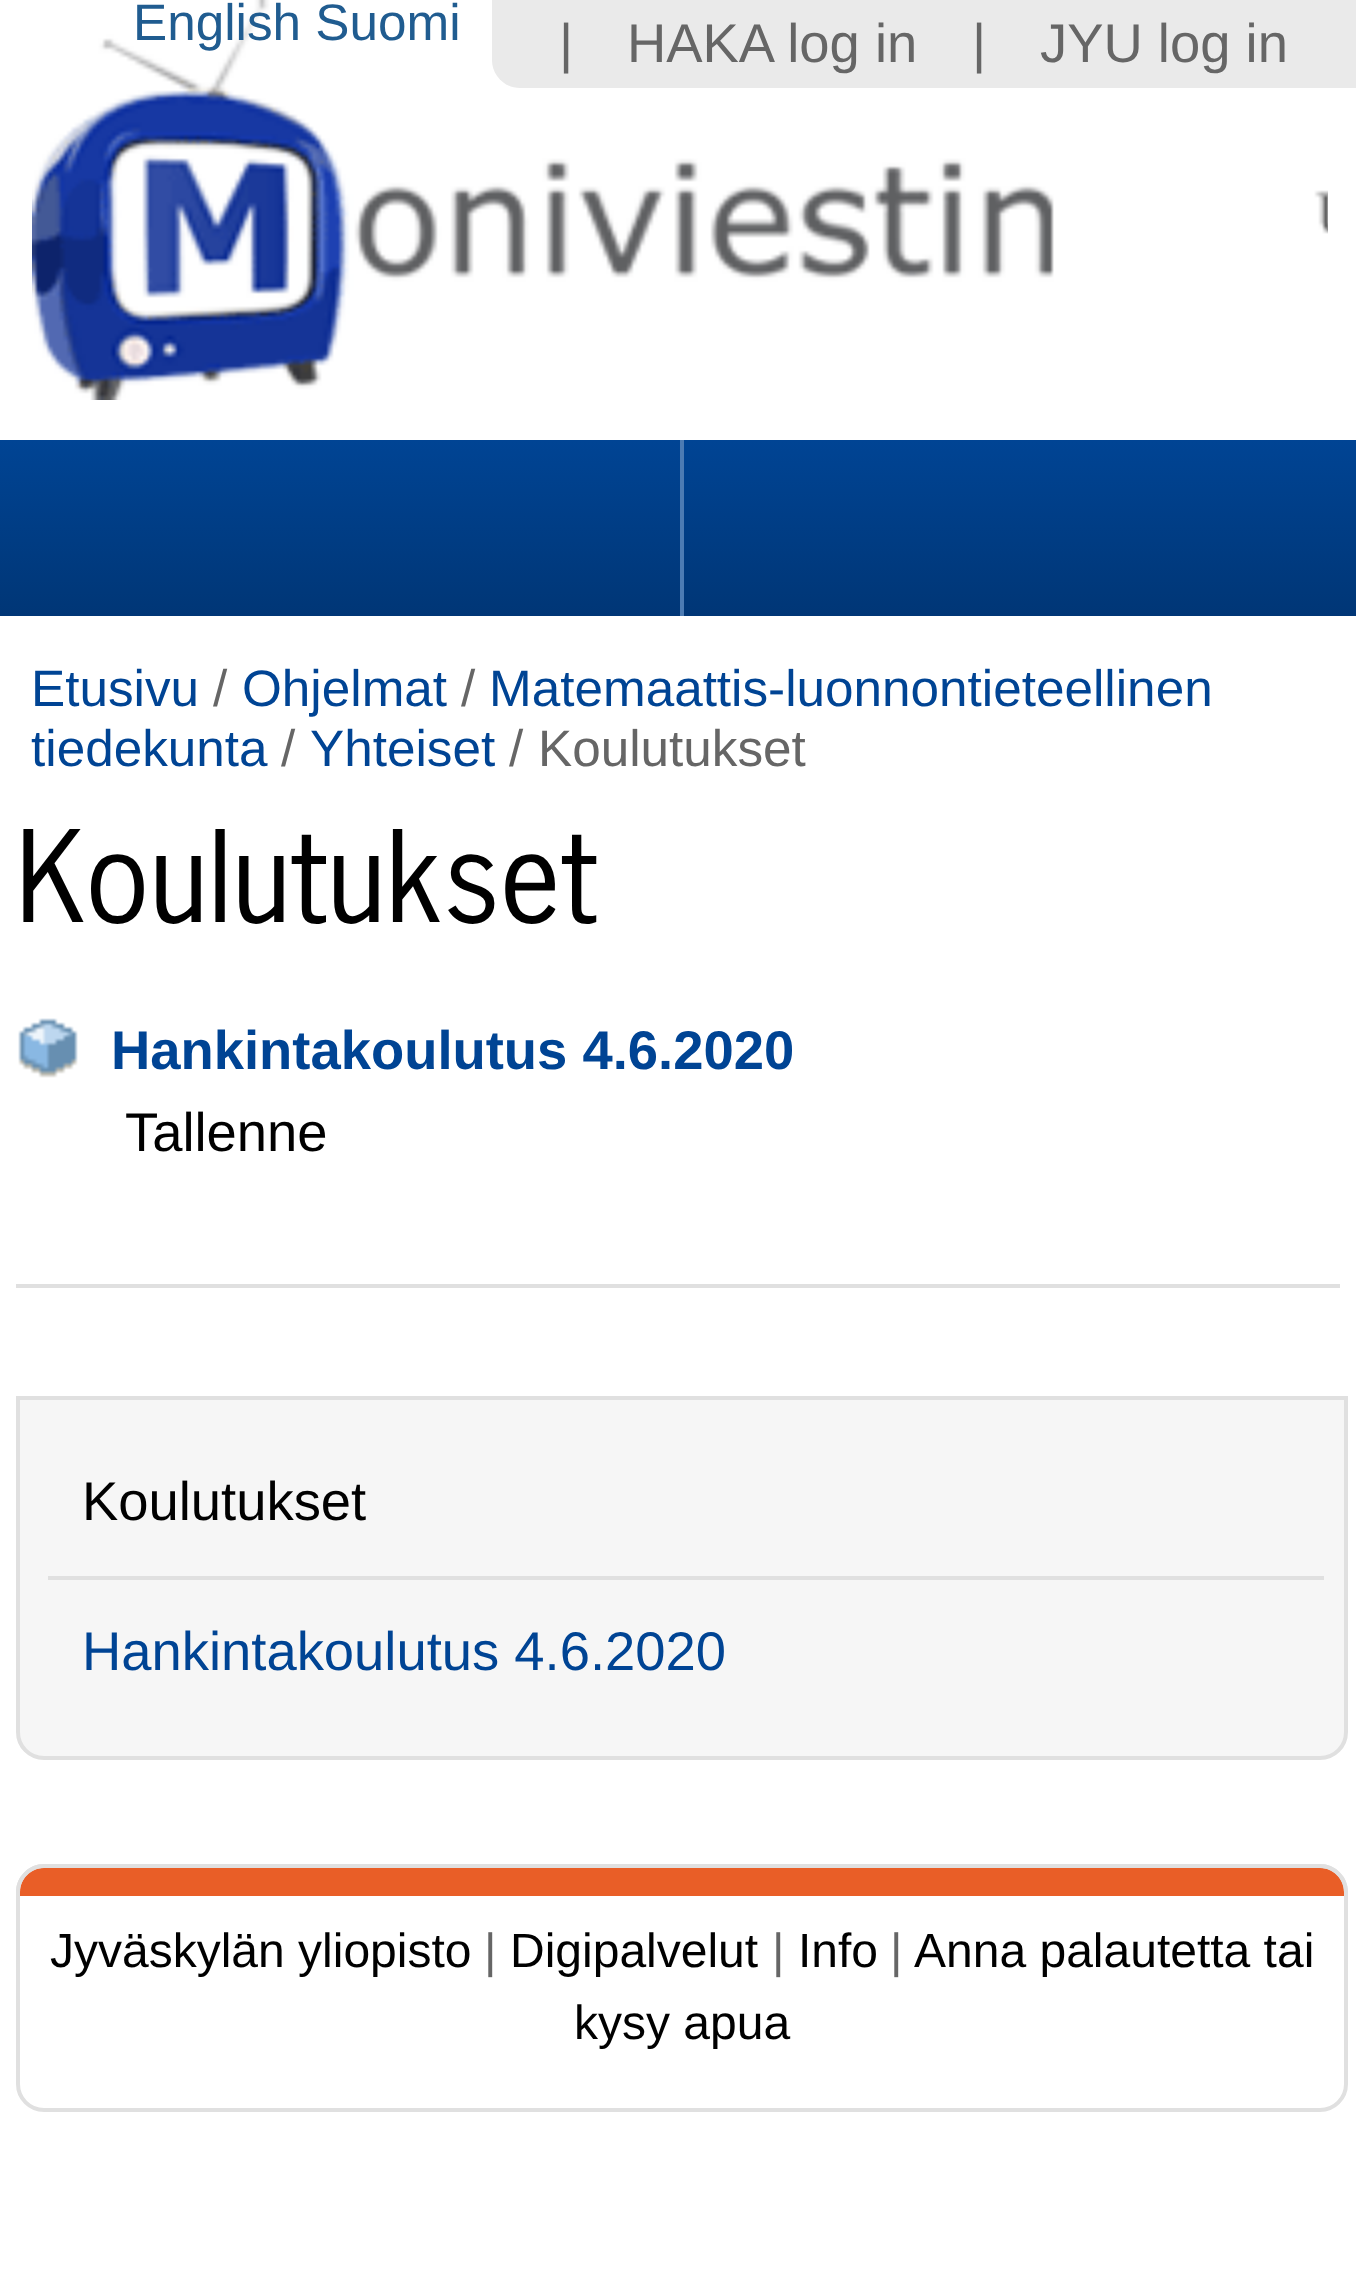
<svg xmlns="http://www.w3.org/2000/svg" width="1356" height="2273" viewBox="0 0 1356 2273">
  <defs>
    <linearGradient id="g1" gradientUnits="userSpaceOnUse" x1="678" y1="440" x2="678" y2="616"><stop offset="0" stop-color="#004494"/><stop offset="1" stop-color="#003676"/></linearGradient>
  </defs>
  <rect width="100%" height="100%" fill="#ffffff"/>
  <image x="32" y="0" width="1296" height="400" href="img1.png"/>
  <text x="133" y="40" font-family="Liberation Sans" font-size="51.25" fill="#205c90">English Suomi</text>
  <path d="M492 0H1356V88H520C504.5 88 492 75.5 492 60Z" fill="#eaeaea"/>
  <text x="559" y="62" font-family="Liberation Sans" font-size="54.4" fill="#666666">|</text>
  <text x="627" y="62" font-family="Liberation Sans" font-size="54.4" fill="#666666">HAKA log in</text>
  <text x="972" y="62" font-family="Liberation Sans" font-size="54.4" fill="#666666">|</text>
  <text x="1040" y="62" font-family="Liberation Sans" font-size="54.4" fill="#666666">JYU log in</text>
  <text x="31" y="706" font-family="Liberation Sans" font-size="51.25" fill="#004494">Etusivu</text>
  <text x="213" y="706" font-family="Liberation Sans" font-size="51.25" fill="#666666">/</text>
  <text x="242" y="706" font-family="Liberation Sans" font-size="51.25" fill="#004494">Ohjelmat</text>
  <text x="461" y="706" font-family="Liberation Sans" font-size="51.25" fill="#666666">/</text>
  <text x="489" y="706" font-family="Liberation Sans" font-size="51.25" fill="#004494">Matemaattis-luonnontieteellinen</text>
  <text x="31" y="766" font-family="Liberation Sans" font-size="51.25" fill="#004494">tiedekunta</text>
  <text x="281" y="766" font-family="Liberation Sans" font-size="51.25" fill="#666666">/</text>
  <text x="310" y="766" font-family="Liberation Sans" font-size="51.25" fill="#004494">Yhteiset</text>
  <text x="509" y="766" font-family="Liberation Sans" font-size="51.25" fill="#666666">/</text>
  <text x="538" y="766" font-family="Liberation Sans" font-size="51.25" fill="#666666">Koulutukset</text>
  <text x="16" y="922" font-family="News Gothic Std" font-size="119.5" fill="#000000">Koulutukset</text>
  <image x="18" y="1018" width="60" height="60" href="img2.png"/>
  <text x="111" y="1069" font-family="Liberation Sans" font-size="54.4" font-weight="bold" fill="#004494">Hankintakoulutus 4.6.2020</text>
  <text x="125" y="1151" font-family="Liberation Sans" font-size="54.4" fill="#000000">Tallenne</text>
  <rect x="16" y="1284" width="1324" height="4" fill="#e0e0e0"/>
  <path d="M18 1398H1346V1732C1346 1746.5 1334.5 1758 1320 1758H44C29.5 1758 18 1746.5 18 1732Z" fill="#f6f6f6" stroke="#e0e0e0" stroke-width="4"/>
  <text x="82" y="1520" font-family="Liberation Sans" font-size="54.4" fill="#000000">Koulutukset</text>
  <rect x="48" y="1576" width="1276" height="4" fill="#e0e0e0"/>
  <text x="82" y="1670" font-family="Liberation Sans" font-size="54.4" fill="#004494">Hankintakoulutus 4.6.2020</text>
  <rect x="18" y="1866" width="1328" height="244" rx="26" fill="none" stroke="#e0e0e0" stroke-width="4"/>
  <path d="M44 1868H1320C1333.5 1868 1344 1878.5 1344 1892V1896H20V1892C20 1878.5 30.5 1868 44 1868Z" fill="#e95e27"/>
  <path d="M44 1864H1320C1335 1864 1348 1877 1348 1892V1896H16V1892C16 1877 29 1864 44 1864ZM44 1868H1320C1333 1868 1344 1879 1344 1892V1896H20V1892C20 1879 31 1868 44 1868Z" fill="#e0e0e0" fill-rule="evenodd"/>
  <text x="50" y="1967" font-family="Liberation Sans" font-size="48" fill="#000000">Jyväskylän yliopisto</text>
  <text x="484" y="1967" font-family="Liberation Sans" font-size="48" fill="#666666">|</text>
  <text x="510" y="1967" font-family="Liberation Sans" font-size="48" fill="#000000">Digipalvelut</text>
  <text x="772" y="1967" font-family="Liberation Sans" font-size="48" fill="#666666">|</text>
  <text x="798" y="1967" font-family="Liberation Sans" font-size="48" fill="#000000">Info</text>
  <text x="890" y="1967" font-family="Liberation Sans" font-size="48" fill="#666666">|</text>
  <text x="914" y="1967" font-family="Liberation Sans" font-size="48" fill="#000000">Anna palautetta tai</text>
  <text x="574" y="2039" font-family="Liberation Sans" font-size="48" fill="#000000">kysy apua</text>
  <rect x="0" y="440" width="1356" height="176" fill="url(#g1)"/>
  <rect x="680" y="440" width="4" height="176" fill="#4c7bb3"/>
</svg>
